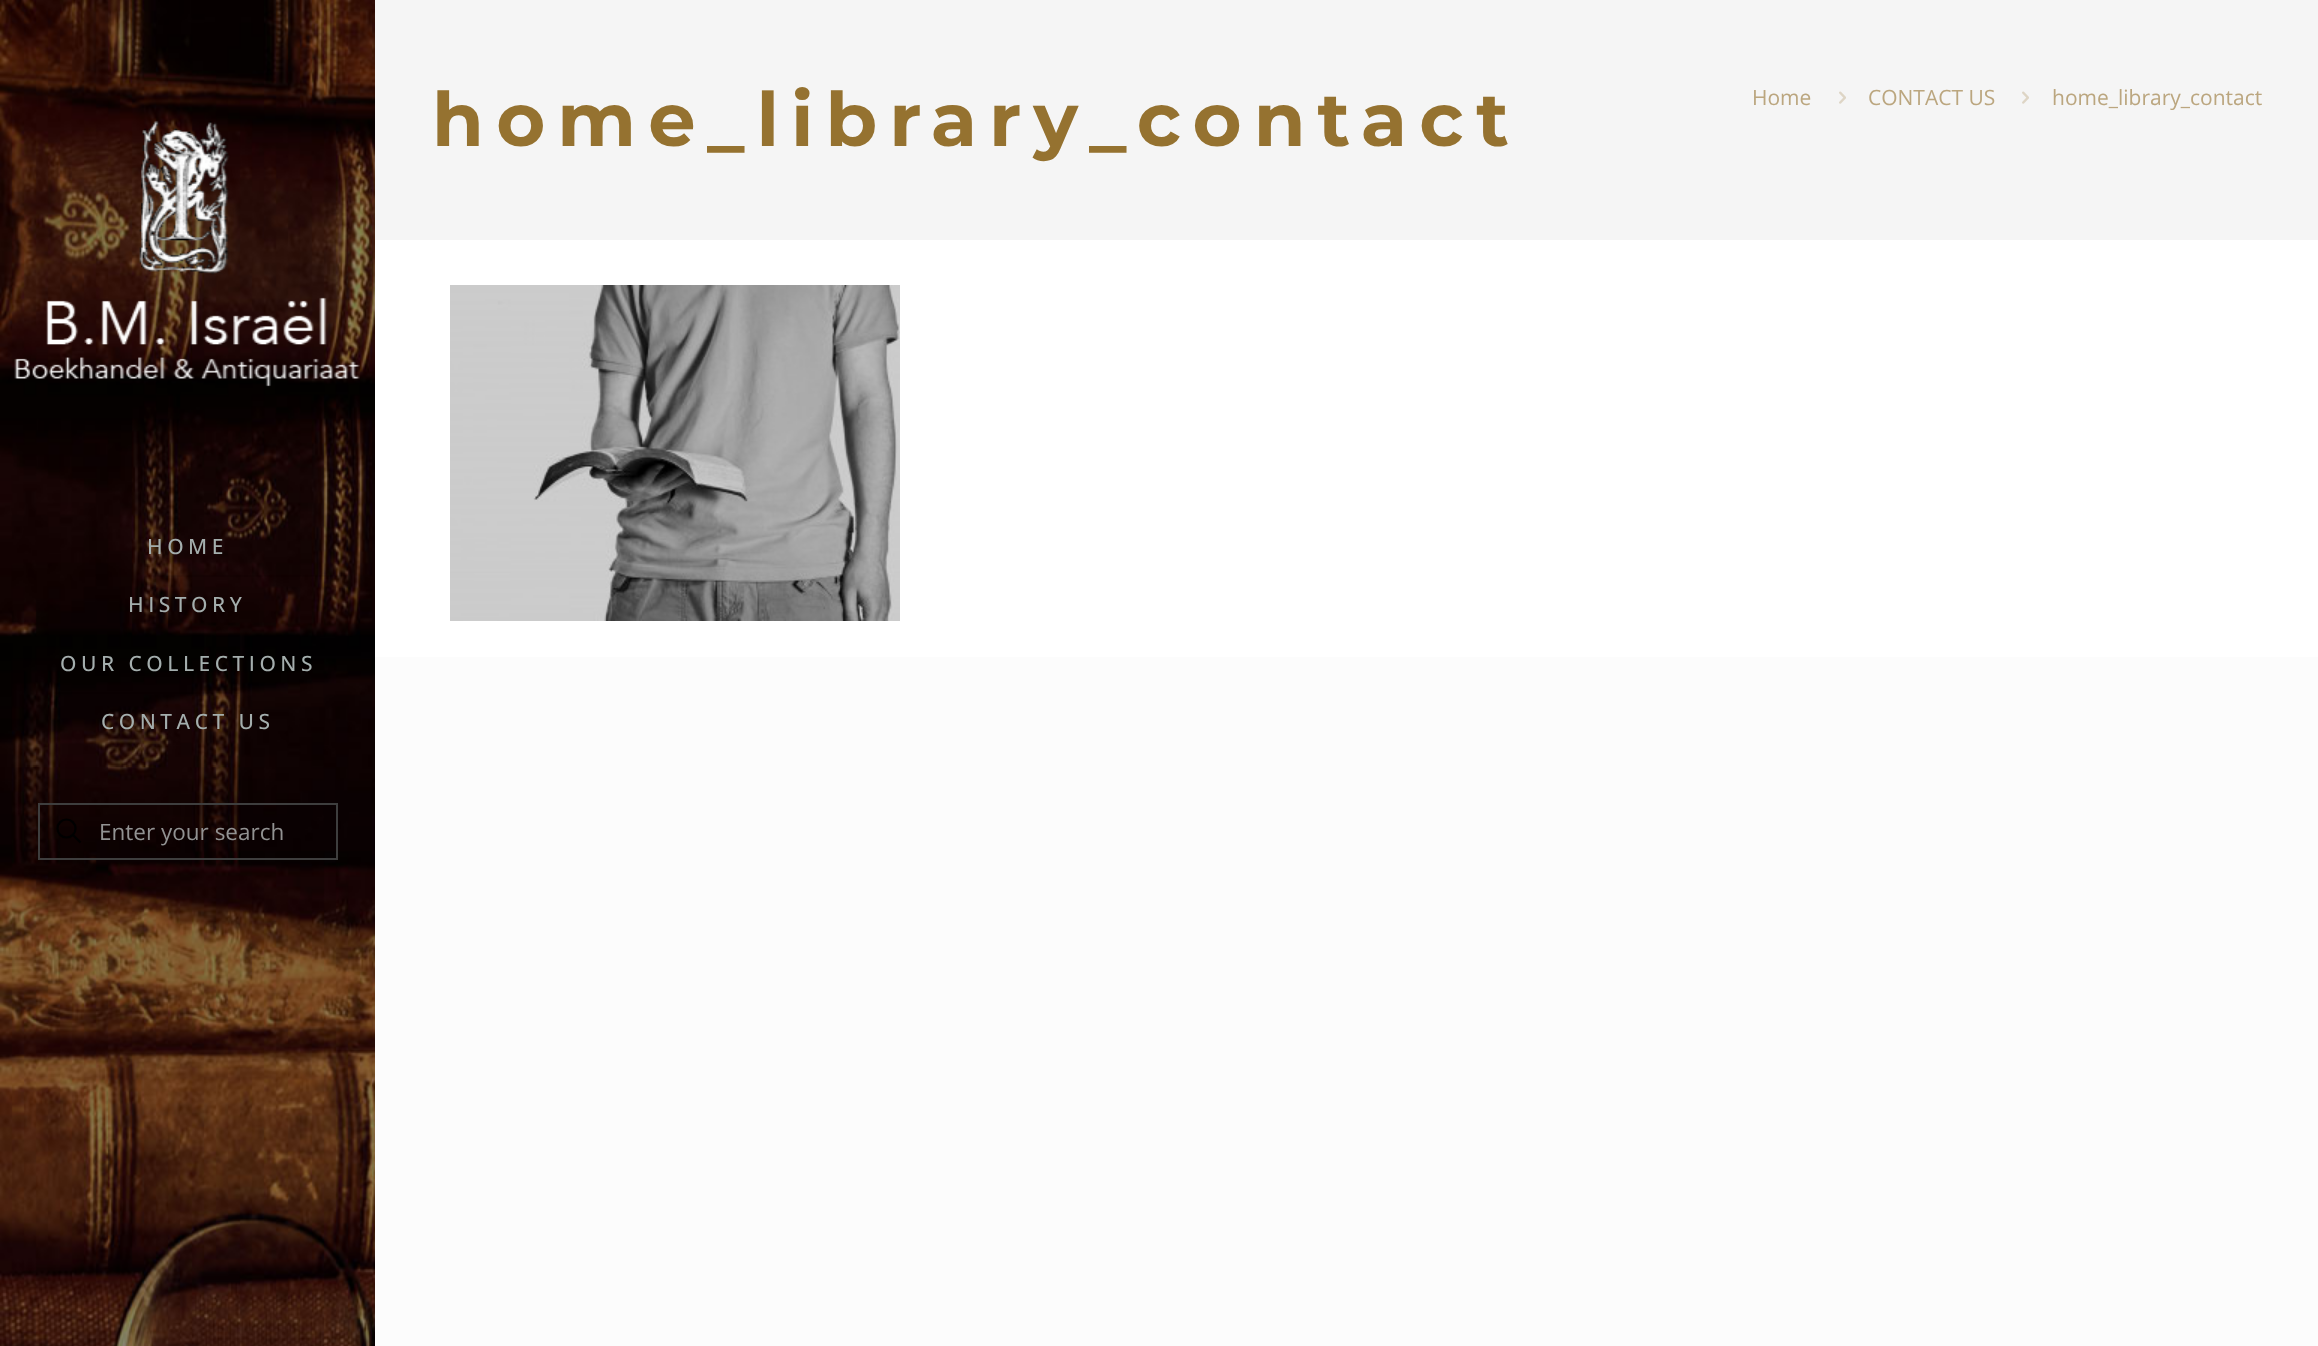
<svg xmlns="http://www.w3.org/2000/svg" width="2318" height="1346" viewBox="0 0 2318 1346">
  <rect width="100%" height="100%" fill="#fcfcfc"/>
  <rect x="375" y="240" width="1943" height="417" fill="#ffffff"/>
  <rect x="375" y="0" width="1943" height="240" fill="#f5f5f5"/>
  <text x="432" y="146" font-family="Montserrat" font-size="75" font-weight="bold" letter-spacing="12" fill="#957230">home_library_contact</text>
  <text x="1752" y="105" font-family="Open Sans" font-size="21" fill="#bba67f">Home</text>
  <image x="1839" y="91" width="7" height="13" href="img1.png"/>
  <text x="1868" y="105" font-family="Open Sans" font-size="21" fill="#bba67f">CONTACT US</text>
  <image x="2022" y="91" width="7" height="13" href="img1.png"/>
  <text x="2052" y="105" font-family="Open Sans" font-size="21" fill="#bba67f">home_library_contact</text>
  <image x="450" y="285" width="450" height="336" href="img2.png"/>
  <image x="0" y="0" width="375" height="1346" href="img3.png"/>
  <image x="14" y="121" width="346" height="266" href="img4.png"/>
  <rect x="151" y="575" width="194" height="2" fill="#000000" fill-opacity="0.05"/>
  <text x="147" y="554" font-family="Open Sans" font-size="21" font-weight="500" letter-spacing="4.5" fill="#a4aead">HOME</text>
  <text x="128" y="612" font-family="Open Sans" font-size="21" font-weight="500" letter-spacing="4.5" fill="#a4aead">HISTORY</text>
  <rect x="53" y="692" width="187" height="2" fill="#000000" fill-opacity="0.05"/>
  <text x="60" y="671" font-family="Open Sans" font-size="21" font-weight="500" letter-spacing="4.5" fill="#a4aead">OUR COLLECTIONS</text>
  <text x="101" y="729" font-family="Open Sans" font-size="21" font-weight="500" letter-spacing="4.5" fill="#a4aead">CONTACT US</text>
  <rect x="39" y="804" width="298" height="55" fill="none" stroke="#3e3e3e" stroke-width="2"/>
  <circle cx="66.5" cy="828.5" r="9" fill="none" stroke="#000000" stroke-width="2.2"/>
  <path d="M73 835L80.5 842.5" fill="none" stroke="#000000" stroke-width="2.2"/>
  <text x="99" y="840" font-family="Open Sans" font-size="22.5" fill="#929292">Enter your search</text>
</svg>
